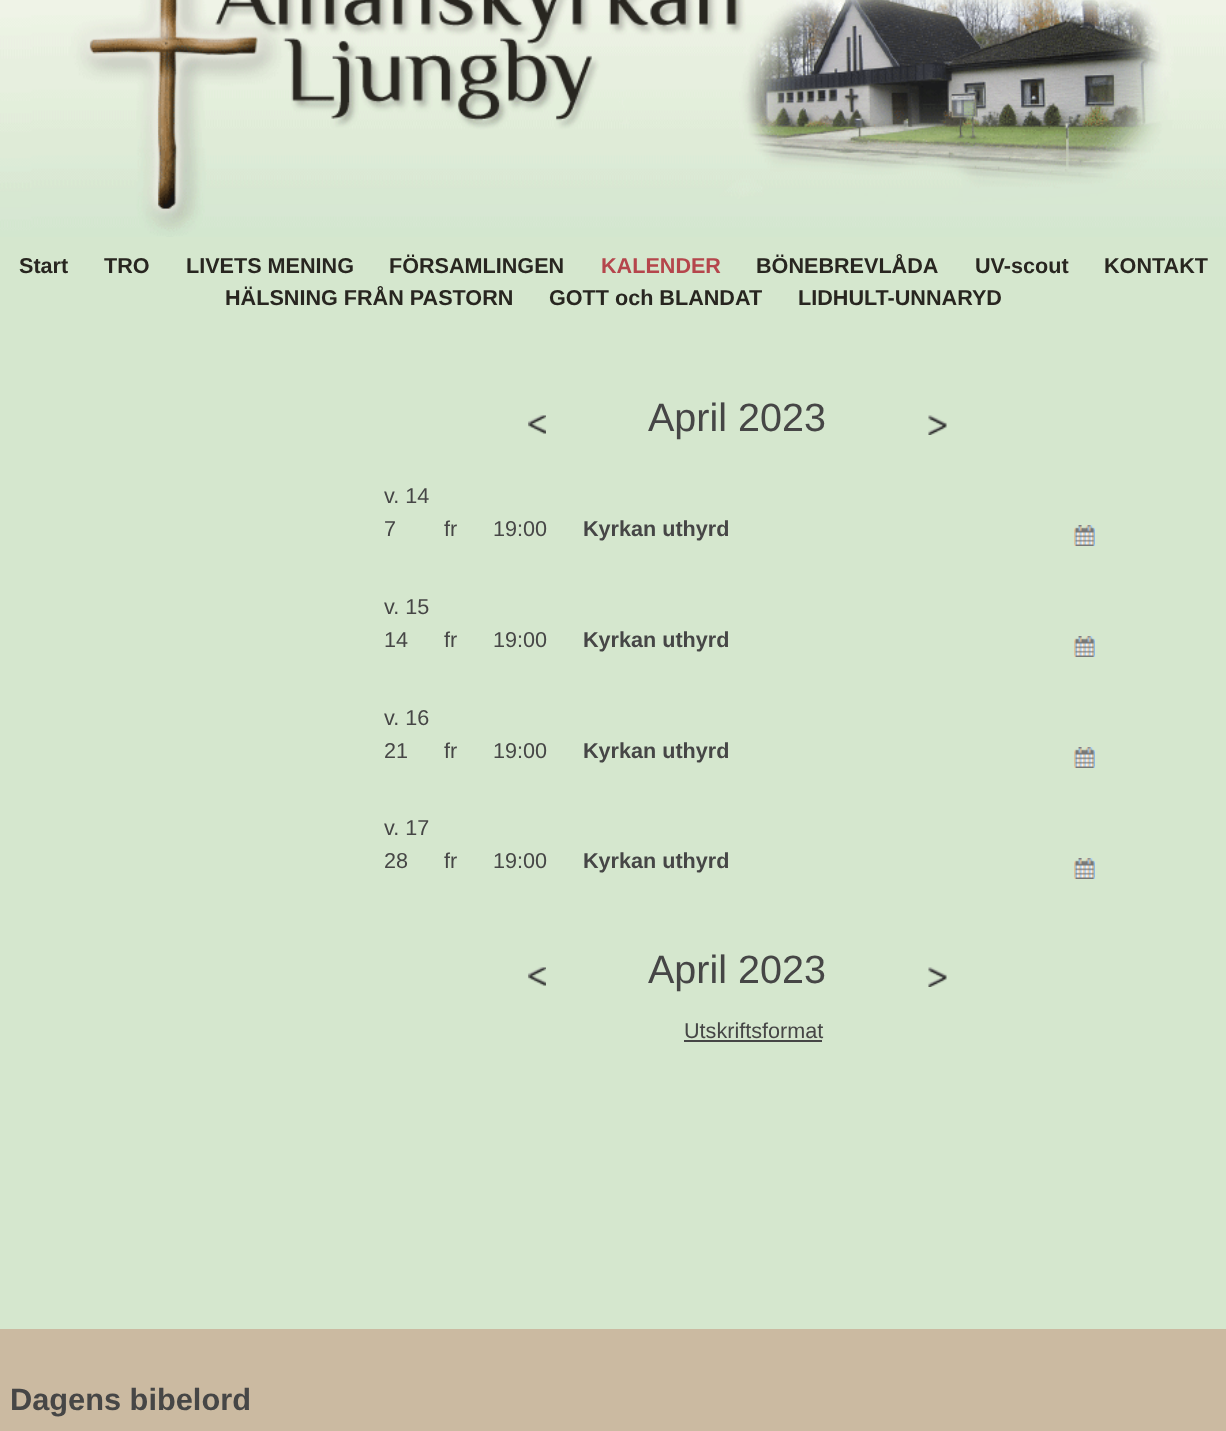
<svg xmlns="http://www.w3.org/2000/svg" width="1226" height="1431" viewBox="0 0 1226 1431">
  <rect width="100%" height="100%" fill="#cbbaa1"/>
  <rect x="0" y="237" width="1226" height="1092" fill="#d5e7ce"/>
  <image x="0" y="0" width="1226" height="237" href="img1.png"/>
  <text x="19" y="273" font-family="Liberation Sans" font-size="21.6" font-weight="bold" fill="#282620">Start</text>
  <text x="104" y="273" font-family="Liberation Sans" font-size="21.6" font-weight="bold" fill="#282620">TRO</text>
  <text x="186" y="273" font-family="Liberation Sans" font-size="21.6" font-weight="bold" fill="#282620">LIVETS MENING</text>
  <text x="389" y="273" font-family="Liberation Sans" font-size="21.6" font-weight="bold" fill="#282620">FÖRSAMLINGEN</text>
  <text x="601" y="273" font-family="Liberation Sans" font-size="21.6" font-weight="bold" fill="#b5464c">KALENDER</text>
  <text x="756" y="273" font-family="Liberation Sans" font-size="21.6" font-weight="bold" fill="#282620">BÖNEBREVLÅDA</text>
  <text x="975" y="273" font-family="Liberation Sans" font-size="21.6" font-weight="bold" fill="#282620">UV-scout</text>
  <text x="1104" y="273" font-family="Liberation Sans" font-size="21.6" font-weight="bold" fill="#282620">KONTAKT</text>
  <text x="225" y="305" font-family="Liberation Sans" font-size="21.6" font-weight="bold" fill="#282620">HÄLSNING FRÅN PASTORN</text>
  <text x="549" y="305" font-family="Liberation Sans" font-size="21.6" font-weight="bold" fill="#282620">GOTT och BLANDAT</text>
  <text x="798" y="305" font-family="Liberation Sans" font-size="21.6" font-weight="bold" fill="#282620">LIDHULT-UNNARYD</text>
  <image x="528" y="415" width="18" height="19" href="img2.png"/>
  <text x="648" y="431" font-family="Liberation Sans" font-size="39.5" fill="#464646">April 2023</text>
  <image x="928" y="415" width="19" height="20" href="img3.png"/>
  <text x="384" y="503" font-family="Liberation Sans" font-size="21.6" fill="#464646">v. 14</text>
  <text x="384" y="536" font-family="Liberation Sans" font-size="21.6" fill="#464646">7</text>
  <text x="444" y="536" font-family="Liberation Sans" font-size="21.6" fill="#464646">fr</text>
  <text x="493" y="536" font-family="Liberation Sans" font-size="21.6" fill="#464646">19:00</text>
  <text x="583" y="536" font-family="Liberation Sans" font-size="21.6" font-weight="bold" fill="#464646">Kyrkan uthyrd</text>
  <image x="1074" y="525" width="21" height="21" href="img4.png"/>
  <text x="384" y="614" font-family="Liberation Sans" font-size="21.6" fill="#464646">v. 15</text>
  <text x="384" y="647" font-family="Liberation Sans" font-size="21.6" fill="#464646">14</text>
  <text x="444" y="647" font-family="Liberation Sans" font-size="21.6" fill="#464646">fr</text>
  <text x="493" y="647" font-family="Liberation Sans" font-size="21.6" fill="#464646">19:00</text>
  <text x="583" y="647" font-family="Liberation Sans" font-size="21.6" font-weight="bold" fill="#464646">Kyrkan uthyrd</text>
  <image x="1074" y="636" width="21" height="21" href="img4.png"/>
  <text x="384" y="725" font-family="Liberation Sans" font-size="21.6" fill="#464646">v. 16</text>
  <text x="384" y="758" font-family="Liberation Sans" font-size="21.6" fill="#464646">21</text>
  <text x="444" y="758" font-family="Liberation Sans" font-size="21.6" fill="#464646">fr</text>
  <text x="493" y="758" font-family="Liberation Sans" font-size="21.6" fill="#464646">19:00</text>
  <text x="583" y="758" font-family="Liberation Sans" font-size="21.6" font-weight="bold" fill="#464646">Kyrkan uthyrd</text>
  <image x="1074" y="747" width="21" height="21" href="img4.png"/>
  <text x="384" y="835" font-family="Liberation Sans" font-size="21.6" fill="#464646">v. 17</text>
  <text x="384" y="868" font-family="Liberation Sans" font-size="21.6" fill="#464646">28</text>
  <text x="444" y="868" font-family="Liberation Sans" font-size="21.6" fill="#464646">fr</text>
  <text x="493" y="868" font-family="Liberation Sans" font-size="21.6" fill="#464646">19:00</text>
  <text x="583" y="868" font-family="Liberation Sans" font-size="21.6" font-weight="bold" fill="#464646">Kyrkan uthyrd</text>
  <image x="1074" y="858" width="21" height="21" href="img4.png"/>
  <image x="528" y="967" width="18" height="19" href="img2.png"/>
  <text x="648" y="983" font-family="Liberation Sans" font-size="39.5" fill="#464646">April 2023</text>
  <image x="928" y="967" width="19" height="20" href="img3.png"/>
  <text x="684" y="1038" font-family="Liberation Sans" font-size="21.6" fill="#464646">Utskriftsformat</text>
  <rect x="684" y="1040" width="138" height="2" fill="#464646"/>
  <text x="10" y="1410" font-family="Liberation Sans" font-size="30.75" font-weight="bold" fill="#464646">Dagens bibelord</text>
</svg>
